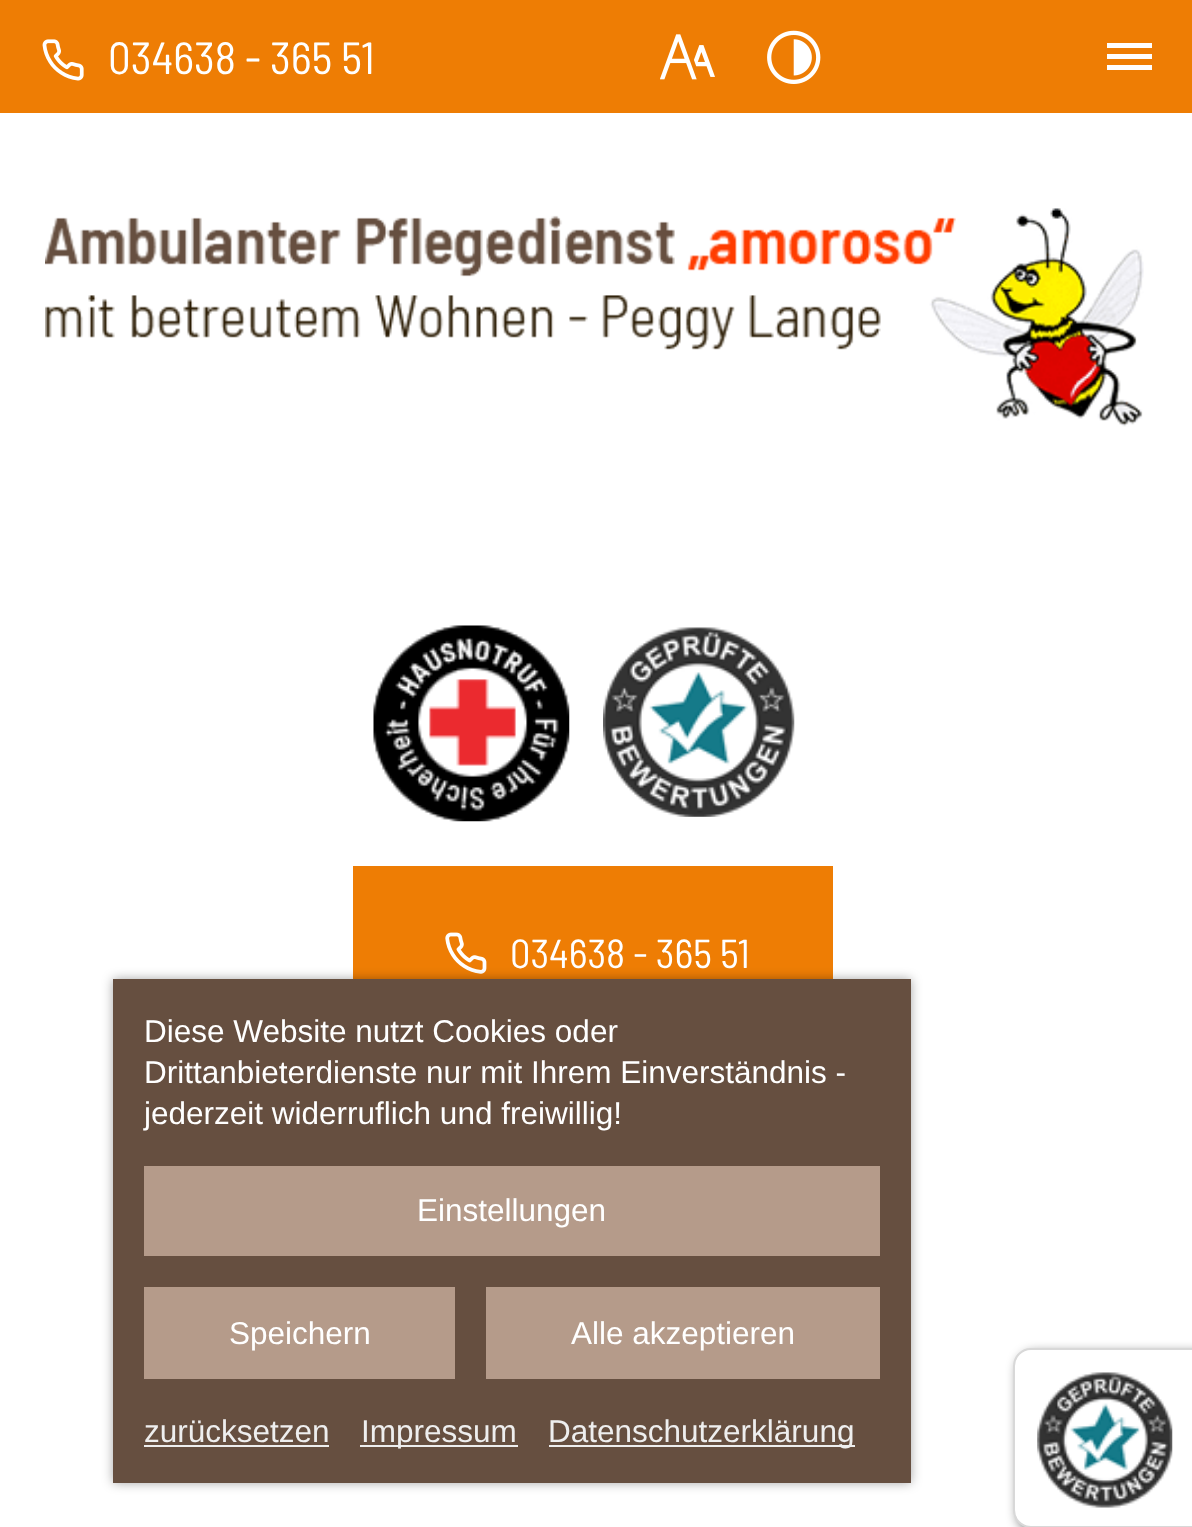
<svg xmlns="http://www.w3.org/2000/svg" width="1192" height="1527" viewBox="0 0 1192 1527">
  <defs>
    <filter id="blur1" x="-50%" y="-200%" width="200%" height="500%"><feGaussianBlur stdDeviation="5.5"/></filter>
  </defs>
  <rect width="100%" height="100%" fill="#ffffff"/>
  <rect x="0" y="0" width="1192" height="113" fill="#ee7d04"/>
  <image x="42" y="39" width="42" height="42" href="img1.png"/>
  <text x="108" y="74" font-family="Barlow Semi Condensed" font-size="45" fill="#ffffff">034638 - 365 51</text>
  <image x="660" y="34" width="55" height="46" href="img2.png"/>
  <image x="767" y="30" width="54" height="54" href="img3.png"/>
  <rect x="1107" y="54" width="45" height="5" fill="#ffffff"/>
  <rect x="1107" y="43" width="45" height="5" fill="#ffffff"/>
  <rect x="1107" y="65" width="45" height="5" fill="#ffffff"/>
  <image x="45" y="208" width="1099" height="219" href="img4.png"/>
  <image x="373" y="625" width="197" height="197" href="img5.png"/>
  <image x="603" y="627" width="192" height="190" href="img6.png"/>
  <rect x="353" y="866" width="480" height="113" fill="#ee7d04"/>
  <image x="445" y="932" width="42" height="42" href="img7.png"/>
  <text x="510" y="968" font-family="Barlow Semi Condensed" font-size="40.5" fill="#ffffff">034638 - 365 51</text>
  <rect x="113" y="979" width="798" height="504" fill="#000000" fill-opacity="0.35" filter="url(#blur1)"/>
  <rect x="113" y="979" width="798" height="504" fill="#664f40"/>
  <text x="144" y="1042" font-family="Liberation Sans" font-size="31.5" fill="#ffffff">Diese Website nutzt Cookies oder</text>
  <text x="144" y="1083" font-family="Liberation Sans" font-size="31.5" fill="#ffffff">Drittanbieterdienste nur mit Ihrem Einverständnis -</text>
  <text x="144" y="1124" font-family="Liberation Sans" font-size="31.5" fill="#ffffff">jederzeit widerruflich und freiwillig!</text>
  <rect x="144" y="1166" width="736" height="90" fill="#b59b8a"/>
  <text x="417" y="1221" font-family="Liberation Sans" font-size="31.5" fill="#ffffff">Einstellungen</text>
  <rect x="144" y="1287" width="311" height="92" fill="#b59b8a"/>
  <text x="229" y="1344" font-family="Liberation Sans" font-size="31.5" fill="#ffffff">Speichern</text>
  <rect x="486" y="1287" width="394" height="92" fill="#b59b8a"/>
  <text x="571" y="1344" font-family="Liberation Sans" font-size="31.5" fill="#ffffff">Alle akzeptieren</text>
  <text x="144" y="1442" font-family="Liberation Sans" font-size="31.5" fill="#eeeeee">zurücksetzen</text>
  <rect x="144" y="1445" width="185" height="2" fill="#eeeeee"/>
  <rect x="360" y="1445" width="158" height="2" fill="#eeeeee"/>
  <text x="361" y="1442" font-family="Liberation Sans" font-size="31.5" fill="#eeeeee">Impressum</text>
  <rect x="549" y="1445" width="306" height="2" fill="#eeeeee"/>
  <text x="548" y="1442" font-family="Liberation Sans" font-size="31.5" fill="#eeeeee">Datenschutzerklärung</text>
  <rect x="1017" y="1352" width="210" height="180" rx="18" fill="#000000" fill-opacity="0.5" filter="url(#blur1)"/>
  <rect x="1014" y="1349" width="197" height="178" rx="17" fill="#ffffff" stroke="#d8d8d8" stroke-width="2"/>
  <image x="1037" y="1372" width="136" height="136" href="img8.png"/>
</svg>
